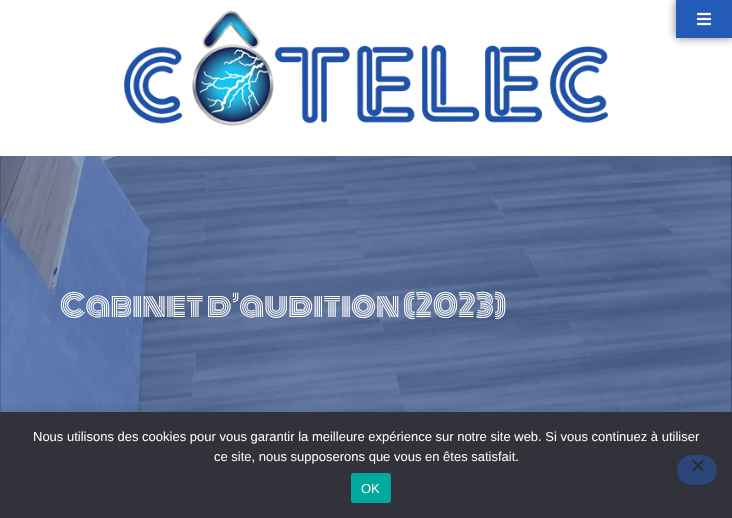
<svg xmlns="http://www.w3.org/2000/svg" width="732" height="518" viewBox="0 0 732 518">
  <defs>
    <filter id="blur1" x="-50%" y="-200%" width="200%" height="500%"><feGaussianBlur stdDeviation="5"/></filter>
    <filter id="blur2" x="-50%" y="-200%" width="200%" height="500%"><feGaussianBlur stdDeviation="4"/></filter>
  </defs>
  <rect width="100%" height="100%" fill="#ffffff"/>
  <image x="124" y="11" width="484" height="115" href="img1.png"/>
  <rect x="676" y="0" width="56" height="38" fill="#000000" fill-opacity="0.5" filter="url(#blur1)"/>
  <rect x="676" y="0" width="56" height="38" fill="#245ab8"/>
  <image x="697" y="12" width="14" height="14" href="img2.png"/>
  <image x="0" y="156" width="732" height="256" href="img3.png"/>
  <text x="60" y="317" font-family="Monoton" font-size="30" fill="#ffffff">Cabinet d’audition (2023)</text>
  <rect x="0" y="411" width="732" height="106" fill="#414141" fill-opacity="0.25" filter="url(#blur2)"/>
  <rect x="0" y="412" width="732" height="106" fill="#32323a"/>
  <text x="33" y="441" font-family="Liberation Sans" font-size="13" fill="#ffffff">Nous utilisons des cookies pour vous garantir la meilleure expérience sur notre site web. Si vous continuez à utiliser</text>
  <text x="214" y="461" font-family="Liberation Sans" font-size="13" fill="#ffffff">ce site, nous supposerons que vous en êtes satisfait.</text>
  <rect x="677" y="455" width="40" height="30" rx="15" fill="#2b4679"/>
  <path d="M702.5 459.5L704 461L693.5 471.5L692 470Z" fill="#2d2d31"/>
  <path d="M692 461L693.5 459.5L704 470L702.5 471.5Z" fill="#2d2d31"/>
  <rect x="351" y="473" width="40" height="30" rx="3" fill="#00a99d"/>
  <text x="361" y="493" font-family="Liberation Sans" font-size="13" fill="#ffffff">OK</text>
</svg>
